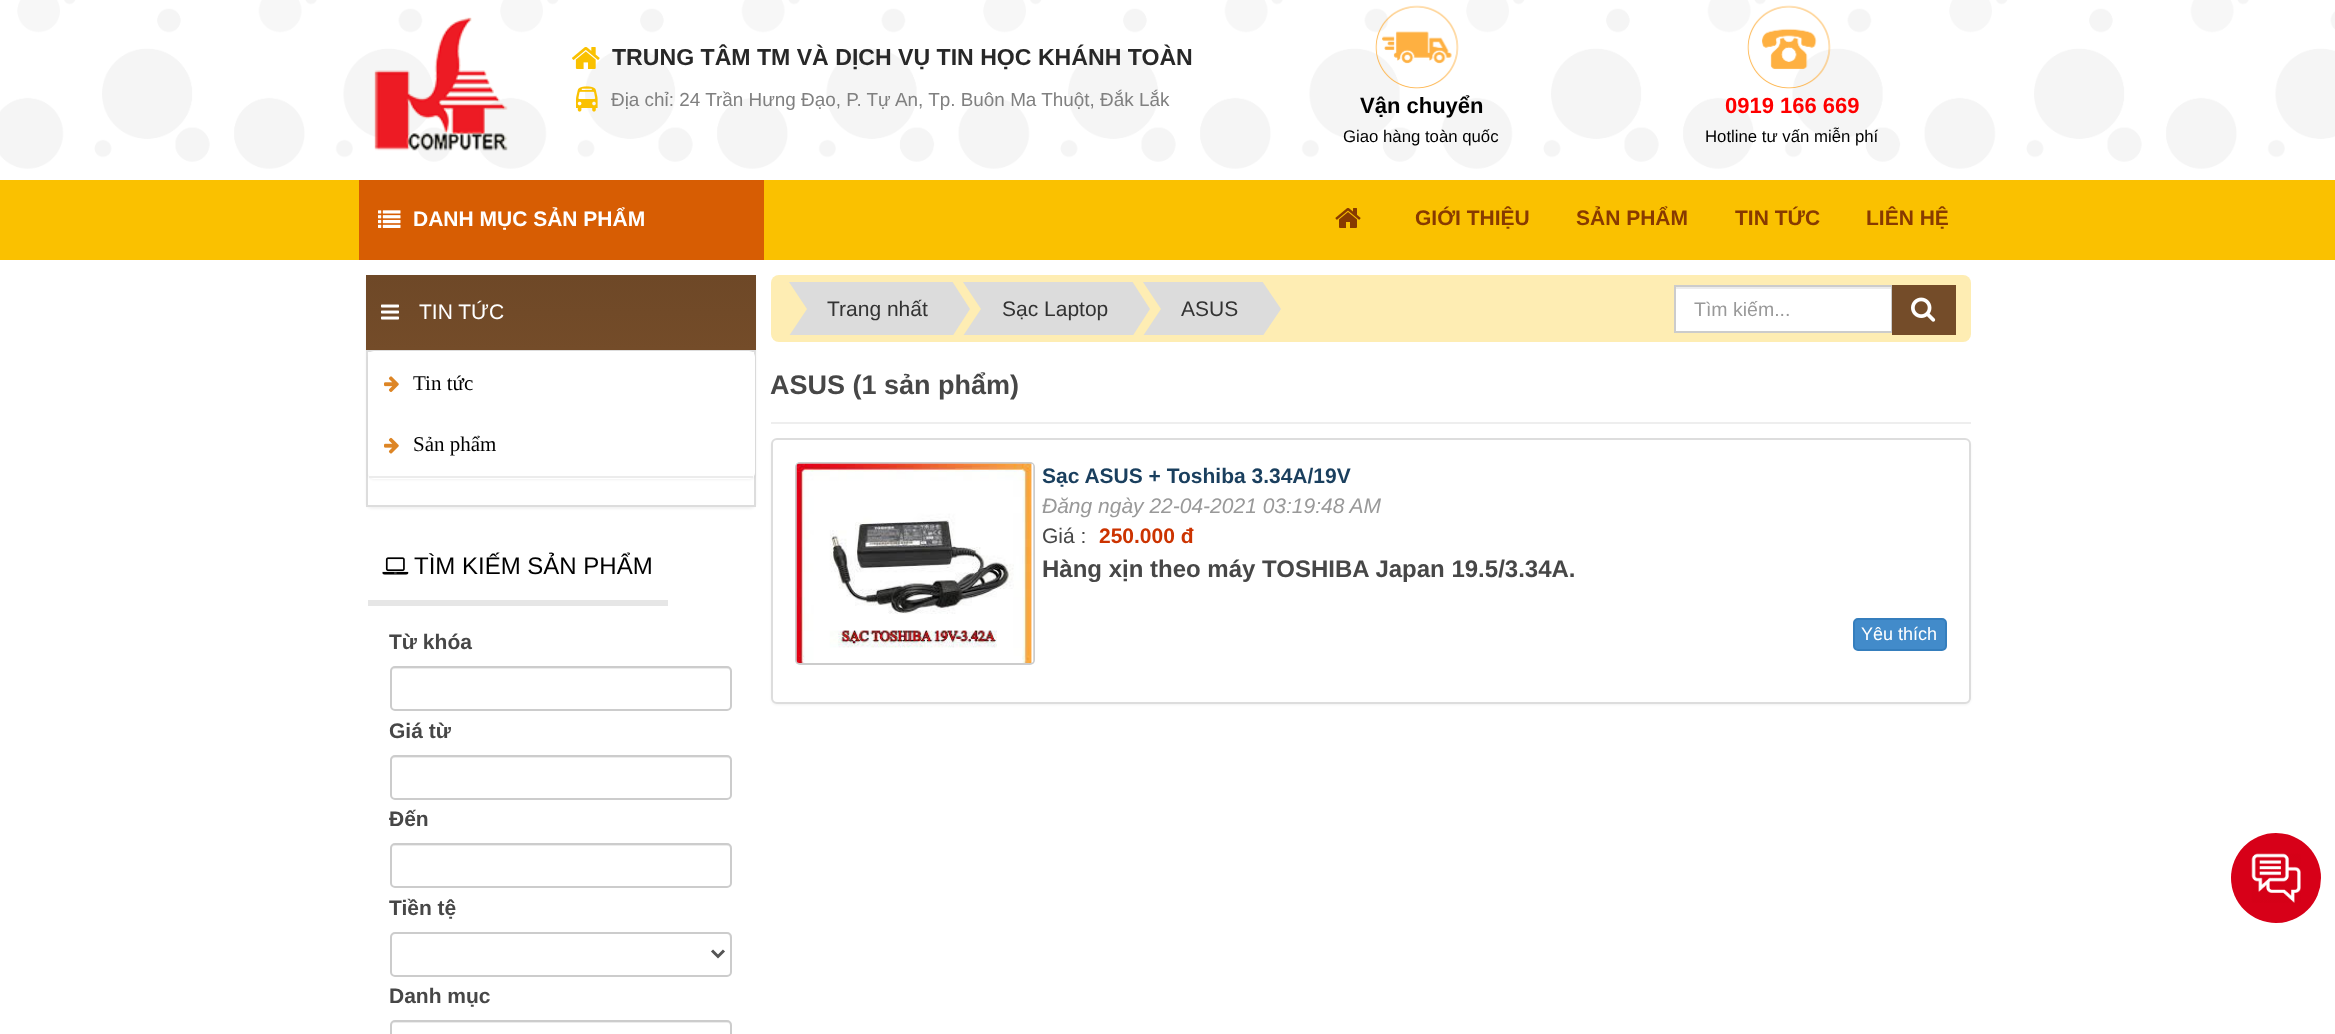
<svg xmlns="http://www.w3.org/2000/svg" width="2335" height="1034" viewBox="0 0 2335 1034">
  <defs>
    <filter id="blur1" x="-50%" y="-200%" width="200%" height="500%"><feGaussianBlur stdDeviation="1"/></filter>
    <linearGradient id="g1" gradientUnits="userSpaceOnUse" x1="561" y1="275" x2="561" y2="350"><stop offset="0" stop-color="#6e4827"/><stop offset="1" stop-color="#744c29"/></linearGradient>
    <clipPath id="clip1"><rect x="786" y="282" width="873" height="53"/></clipPath>
  </defs>
  <rect width="100%" height="100%" fill="#ffffff"/>
  <image x="0" y="0" width="2335" height="169" href="img1.png"/>
  <image x="374" y="17" width="134" height="134" href="img2.png"/>
  <image x="572" y="47" width="28" height="22" href="img3.png"/>
  <text x="612" y="65" font-family="Liberation Sans" font-size="23.1" font-weight="bold" fill="#282828">TRUNG TÂM TM VÀ DỊCH VỤ TIN HỌC KHÁNH TOÀN</text>
  <image x="576" y="86" width="22" height="26" href="img4.png"/>
  <text x="611" y="106" font-family="Liberation Sans" font-size="18.9" fill="#808080">Địa chỉ: 24 Trần Hưng Đạo, P. Tự An, Tp. Buôn Ma Thuột, Đắk Lắk</text>
  <image x="1375" y="5" width="84" height="84" href="img5.png"/>
  <text x="1360" y="113" font-family="Liberation Sans" font-size="22" font-weight="bold" fill="#000000">Vận chuyển</text>
  <text x="1343" y="142" font-family="Liberation Sans" font-size="16.75" fill="#000000">Giao hàng toàn quốc</text>
  <image x="1747" y="5" width="84" height="84" href="img6.png"/>
  <text x="1725" y="113" font-family="Liberation Sans" font-size="22" font-weight="bold" fill="#ff0000">0919 166 669</text>
  <text x="1705" y="142" font-family="Liberation Sans" font-size="16.75" fill="#000000">Hotline tư vấn miễn phí</text>
  <rect x="0" y="180" width="2335" height="80" fill="#fac100"/>
  <rect x="359" y="180" width="405" height="80" fill="#d75d03"/>
  <image x="378" y="210" width="23" height="18" href="img7.png"/>
  <text x="413" y="226" font-family="Liberation Sans" font-size="21" font-weight="bold" fill="#ffffff">DANH MỤC SẢN PHẨM</text>
  <image x="1335" y="208" width="26" height="20" href="img8.png"/>
  <text x="1415" y="225" font-family="Liberation Sans" font-size="21" font-weight="bold" fill="#873a00">GIỚI THIỆU</text>
  <text x="1576" y="225" font-family="Liberation Sans" font-size="21" font-weight="bold" fill="#873a00">SẢN PHẨM</text>
  <text x="1735" y="225" font-family="Liberation Sans" font-size="21" font-weight="bold" fill="#873a00">TIN TỨC</text>
  <text x="1866" y="225" font-family="Liberation Sans" font-size="21" font-weight="bold" fill="#873a00">LIÊN HỆ</text>
  <rect x="366" y="276" width="390" height="233" rx="6" fill="#000000" fill-opacity="0.05" filter="url(#blur1)"/>
  <rect x="366" y="275" width="390" height="75" fill="url(#g1)"/>
  <image x="381" y="304" width="18" height="16" href="img9.png"/>
  <text x="419" y="319" font-family="Liberation Sans" font-size="21" fill="#ffffff">TIN TỨC</text>
  <rect x="367" y="351" width="388" height="155" fill="#ffffff" stroke="#dddddd" stroke-width="2"/>
  <rect x="368" y="353" width="387" height="127" rx="6" fill="#000000" fill-opacity="0.05" filter="url(#blur1)"/>
  <rect x="368" y="351" width="387" height="128" rx="6" fill="#ffffff"/>
  <rect x="369" y="476" width="384" height="2" fill="#ececec"/>
  <image x="384" y="376" width="15" height="16" href="img10.png"/>
  <text x="413" y="390" font-family="Liberation Serif" font-size="21" fill="#000000">Tin tức</text>
  <image x="384" y="437" width="15" height="17" href="img11.png"/>
  <text x="413" y="451" font-family="Liberation Serif" font-size="21" fill="#000000">Sản phẩm</text>
  <rect x="368" y="600" width="300" height="6" fill="#e6e6e6"/>
  <image x="382" y="557" width="27" height="18" href="img12.png"/>
  <text x="414" y="574" font-family="Liberation Sans" font-size="24" fill="#000000">TÌM KIẾM SẢN PHẨM</text>
  <text x="389" y="649" font-family="Liberation Sans" font-size="21" font-weight="bold" fill="#474747">Từ khóa</text>
  <path d="M394 669H728C729 669 730 670 730 672V709C731 709 731 708 731 707V671C731 669 730 668 728 668H395C393 668 392 669 392 671V672C392 670 393 669 394 669Z" fill="#ececec"/>
  <rect x="391" y="667" width="340" height="43" rx="4" fill="none" stroke="#cccccc" stroke-width="2"/>
  <text x="389" y="738" font-family="Liberation Sans" font-size="21" font-weight="bold" fill="#474747">Giá từ</text>
  <path d="M394 758H728C729 758 730 759 730 760V797C731 797 731 796 731 795V759C731 757 730 756 728 756H395C393 756 392 757 392 759V760C392 759 393 758 394 758Z" fill="#ececec"/>
  <rect x="391" y="756" width="340" height="43" rx="4" fill="none" stroke="#cccccc" stroke-width="2"/>
  <text x="389" y="826" font-family="Liberation Sans" font-size="21" font-weight="bold" fill="#474747">Đến</text>
  <path d="M394 846H728C729 846 730 847 730 849V886C731 886 731 885 731 884V848C731 846 730 845 728 845H395C393 845 392 846 392 848V849C392 847 393 846 394 846Z" fill="#ececec"/>
  <rect x="391" y="844" width="340" height="43" rx="4" fill="none" stroke="#cccccc" stroke-width="2"/>
  <text x="389" y="915" font-family="Liberation Sans" font-size="21" font-weight="bold" fill="#474747">Tiền tệ</text>
  <path d="M394 934H728C731 934 730 949 730 950V974C731 974 731 973 731 972V936C731 934 730 933 728 933H395C393 933 392 934 392 936V938C392 936 393 934 394 934Z" fill="#ececec"/>
  <rect x="391" y="933" width="340" height="43" rx="4" fill="none" stroke="#cccccc" stroke-width="2"/>
  <path d="M712 950.5L718 956.5L724 950.5" fill="none" stroke="#555555" stroke-width="3"/>
  <text x="389" y="1003" font-family="Liberation Sans" font-size="21" font-weight="bold" fill="#474747">Danh mục</text>
  <path d="M394 1023H728C729 1023 730 1024 730 1026V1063C731 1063 731 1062 731 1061V1025C731 1023 730 1022 728 1022H395C393 1022 392 1023 392 1025V1026C392 1024 393 1023 394 1023Z" fill="#ececec"/>
  <rect x="391" y="1021" width="340" height="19" rx="4" fill="none" stroke="#cccccc" stroke-width="2"/>
  <rect x="771" y="275" width="1200" height="67" rx="8" fill="#feedb3"/>
  <rect x="807" y="282" width="143" height="53" fill="#dcdcdc"/>
  <g clip-path="url(#clip1)">
    <path d="M786 277.5H807V309ZM807 340.5H786L807 309Z" fill="#dcdcdc"/>
  </g>
  <text x="827" y="316" font-family="Liberation Sans" font-size="21" fill="#333333">Trang nhất</text>
  <g clip-path="url(#clip1)">
    <path d="M950 340V278L970 309Z" fill="#dcdcdc"/>
  </g>
  <rect x="981" y="282" width="149" height="53" fill="#dcdcdc"/>
  <g clip-path="url(#clip1)">
    <path d="M960 277.5H981V309ZM981 340.5H960L981 309Z" fill="#dcdcdc"/>
  </g>
  <text x="1002" y="316" font-family="Liberation Sans" font-size="21" fill="#333333">Sạc Laptop</text>
  <g clip-path="url(#clip1)">
    <path d="M1130 340V278L1150 309Z" fill="#dcdcdc"/>
  </g>
  <rect x="1161" y="282" width="99" height="53" fill="#dcdcdc"/>
  <g clip-path="url(#clip1)">
    <path d="M1140 277.5H1161V309ZM1161 340.5H1140L1161 309Z" fill="#dcdcdc"/>
  </g>
  <text x="1181" y="316" font-family="Liberation Sans" font-size="21" fill="#333333">ASUS</text>
  <g clip-path="url(#clip1)">
    <path d="M1260 340V278L1281 309Z" fill="#dcdcdc"/>
  </g>
  <rect x="1676" y="289" width="215" height="42" fill="#ffffff"/>
  <rect x="1676" y="287" width="216" height="2" fill="#ececec"/>
  <rect x="1675" y="286" width="217" height="46" fill="none" stroke="#cccccc" stroke-width="2"/>
  <text x="1694" y="316" font-family="Liberation Sans" font-size="19.5" fill="#999999">Tìm kiếm...</text>
  <rect x="1892" y="285" width="64" height="50" fill="#744c29"/>
  <image x="1911" y="297" width="25" height="25" href="img13.png"/>
  <rect x="771" y="422" width="1200" height="2" fill="#eeeeee"/>
  <text x="770" y="394" font-family="Liberation Sans" font-size="27" font-weight="bold" fill="#474747">ASUS (1 sản phẩm)</text>
  <rect x="771" y="440" width="1200" height="265" rx="6" fill="#000000" fill-opacity="0.05" filter="url(#blur1)"/>
  <rect x="772" y="439" width="1198" height="264" rx="5" fill="#ffffff" stroke="#dddddd" stroke-width="2"/>
  <rect x="795" y="462" width="240" height="203" rx="5" fill="#cccccc"/>
  <image x="796" y="463" width="238" height="200" href="img14.png"/>
  <text x="1042" y="483" font-family="Liberation Sans" font-size="21" font-weight="bold" fill="#1a3f5e">Sạc ASUS + Toshiba 3.34A/19V</text>
  <text x="1042" y="513" font-family="Liberation Sans" font-size="21" font-style="italic" fill="#999999">Đăng ngày 22-04-2021 03:19:48 AM</text>
  <text x="1042" y="543" font-family="Liberation Sans" font-size="21" fill="#474747">Giá :</text>
  <text x="1099" y="543" font-family="Liberation Sans" font-size="21" font-weight="bold" fill="#cc3300">250.000 đ</text>
  <text x="1042" y="577" font-family="Liberation Sans" font-size="24" font-weight="bold" fill="#474747">Hàng xịn theo máy TOSHIBA Japan 19.5/3.34A.</text>
  <rect x="1854" y="619" width="92" height="31" rx="4" fill="#428bca" stroke="#357ebd" stroke-width="2"/>
  <text x="1861" y="640" font-family="Liberation Sans" font-size="18" fill="#ffffff">Yêu thích</text>
  <circle cx="2276" cy="878" r="45" fill="#d70018"/>
  <image x="2251" y="853" width="50" height="50" href="img15.png"/>
</svg>
